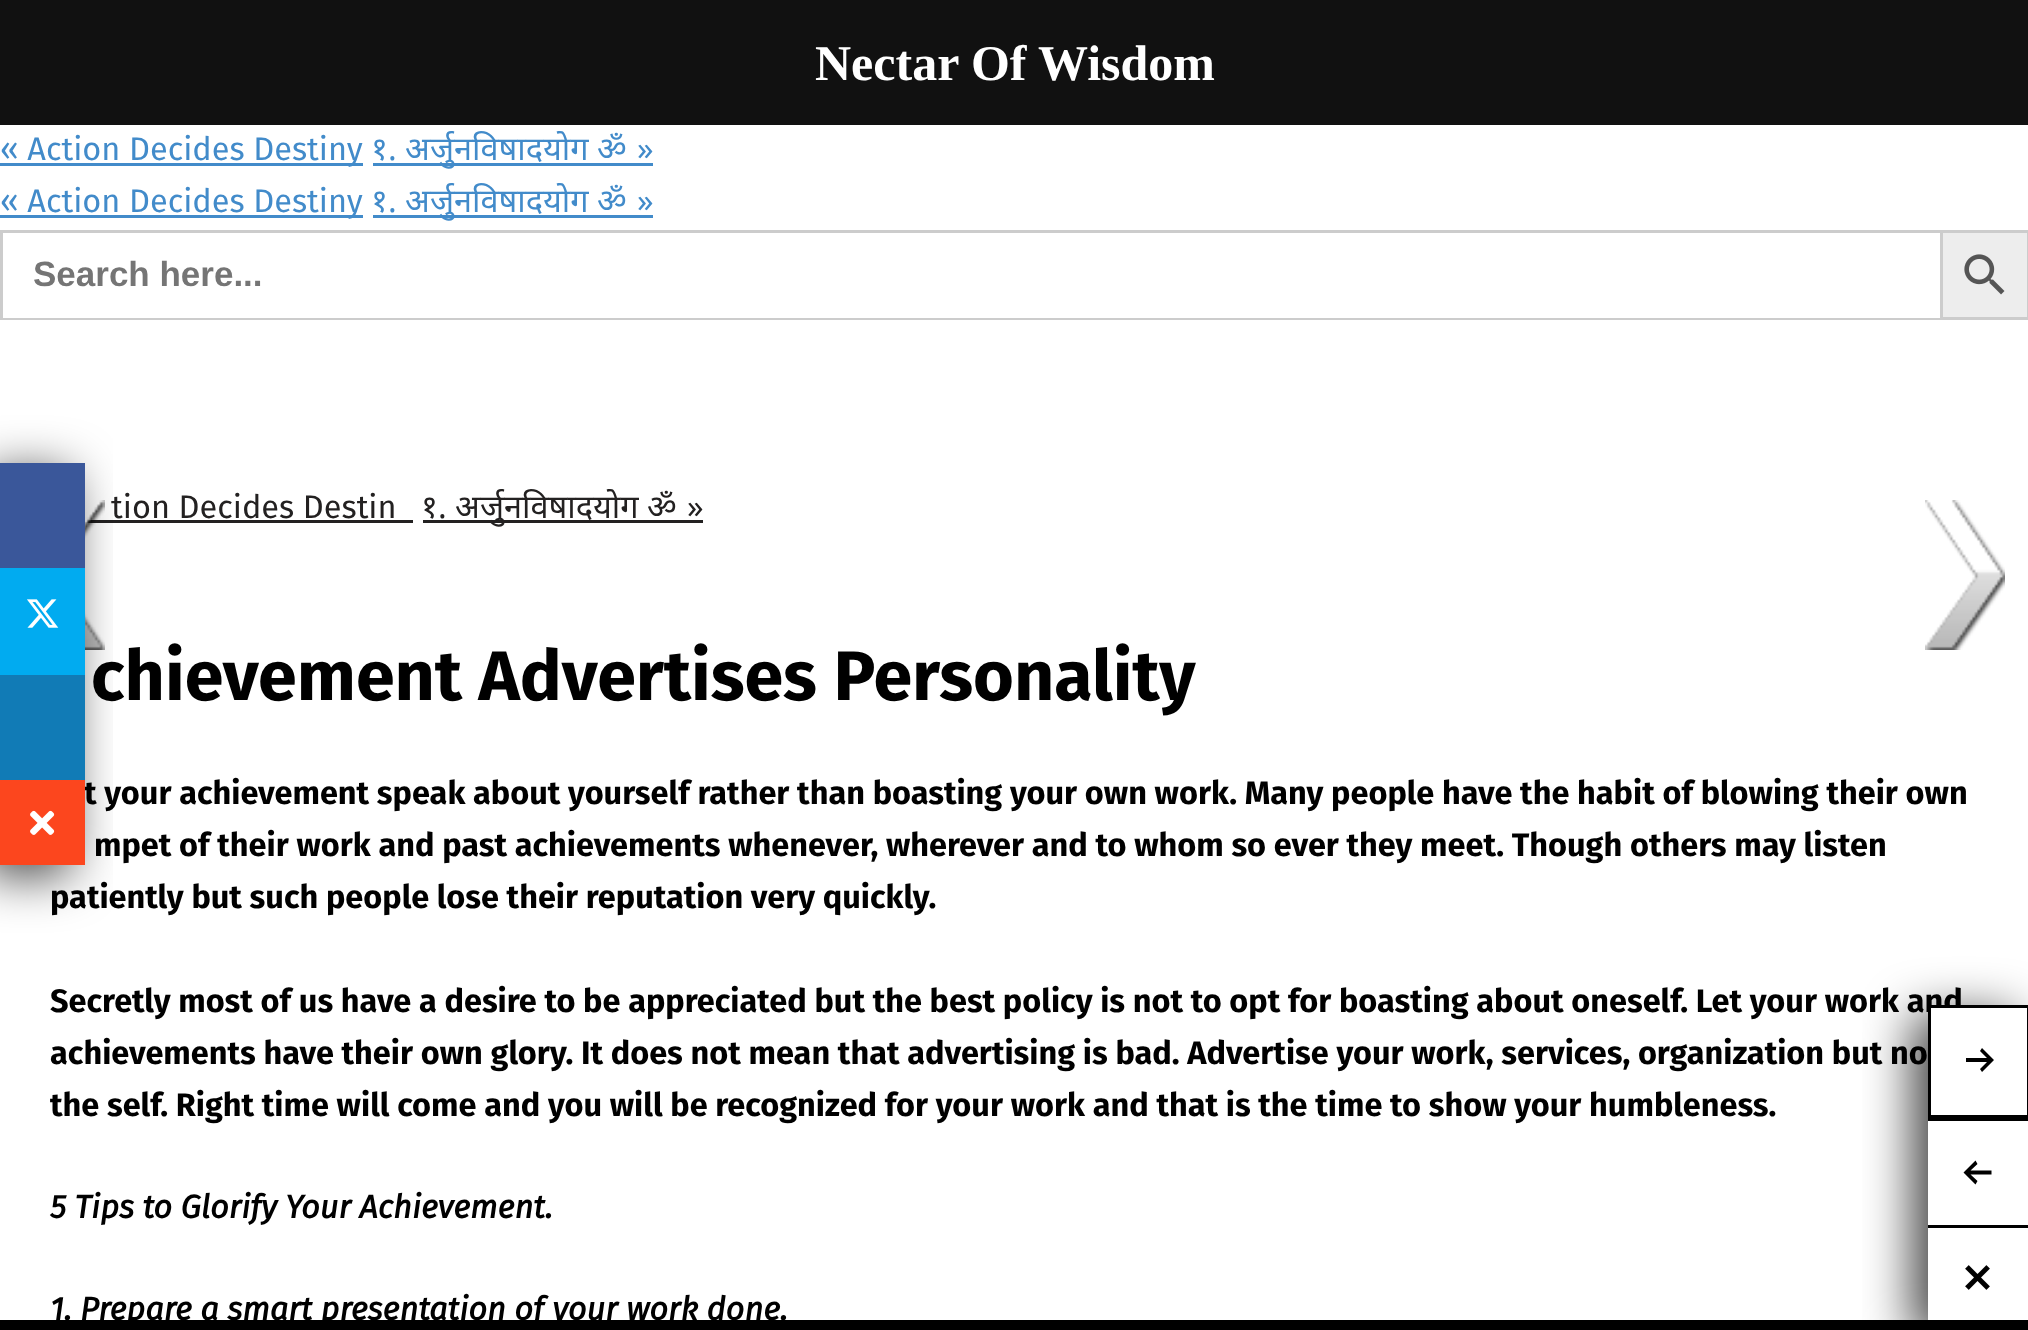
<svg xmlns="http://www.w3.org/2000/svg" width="2028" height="1330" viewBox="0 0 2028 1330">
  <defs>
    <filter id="blur1" x="-50%" y="-200%" width="200%" height="500%"><feGaussianBlur stdDeviation="25"/></filter>
    <clipPath id="clip1"><path d="M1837 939H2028V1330H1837ZM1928 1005H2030V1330H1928Z" clip-rule="evenodd"/></clipPath>
  </defs>
  <rect width="100%" height="100%" fill="#ffffff"/>
  <rect x="0" y="0" width="2028" height="125" fill="#111111"/>
  <text x="815" y="80" font-family="Liberation Serif" font-size="50" font-weight="bold" fill="#ffffff">Nectar Of Wisdom</text>
  <rect x="0" y="163" width="363" height="3" fill="#428bca"/>
  <text x="0" y="160" font-family="Fira Sans" font-size="32.5" fill="#428bca">« Action Decides Destiny</text>
  <rect x="373" y="163" width="280" height="3" fill="#428bca"/>
  <text x="371" y="160" font-family="Noto Sans" font-size="32.5" fill="#428bca">१. अर्जुनविषादयोग</text>
  <text x="597" y="160" word-spacing="2" font-family="Noto Sans" font-size="32.5" fill="#428bca">ॐ »</text>
  <rect x="0" y="215" width="363" height="3" fill="#428bca"/>
  <text x="0" y="212" font-family="Fira Sans" font-size="32.5" fill="#428bca">« Action Decides Destiny</text>
  <rect x="373" y="215" width="280" height="3" fill="#428bca"/>
  <text x="371" y="212" font-family="Noto Sans" font-size="32.5" fill="#428bca">१. अर्जुनविषादयोग</text>
  <text x="597" y="212" word-spacing="2" font-family="Noto Sans" font-size="32.5" fill="#428bca">ॐ »</text>
  <rect x="0" y="230" width="1940" height="3" fill="#cccccc"/>
  <rect x="0" y="318" width="1940" height="2" fill="#cccccc"/>
  <rect x="0" y="230" width="3" height="90" fill="#cccccc"/>
  <text x="33" y="286" font-family="Liberation Sans" font-size="35" font-weight="bold" fill="#757575">Search here...</text>
  <rect x="1941.5" y="231.5" width="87" height="87" fill="#ededed" stroke="#cccccc" stroke-width="3"/>
  <image x="1964" y="254" width="41" height="41" href="img1.png"/>
  <rect x="85" y="520" width="328" height="3" fill="#232121"/>
  <text x="91" y="700" font-family="Fira Sans" font-size="70" font-weight="bold" fill="#000000">chievement Advertises Personality</text>
  <image x="85" y="500" width="20" height="150" href="img4.png"/>
  <rect x="-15" y="473" width="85" height="402" fill="#000000" fill-opacity="0.75" filter="url(#blur1)"/>
  <rect x="0" y="463" width="85" height="105" fill="#3a579a"/>
  <rect x="0" y="568" width="85" height="107" fill="#01abf0"/>
  <image x="27" y="599" width="32" height="29" href="img2.png"/>
  <text x="84" y="804" font-family="Fira Sans" font-size="32.5" font-weight="bold" fill="#000000">t your achievement speak about yourself rather than boasting your own work. Many people have the habit of blowing their own</text>
  <rect x="0" y="675" width="85" height="105" fill="#117bb6"/>
  <rect x="0" y="780" width="85" height="85" fill="#fc461e"/>
  <image x="30" y="810" width="25" height="25" href="img3.png"/>
  <text x="111" y="518" font-family="Fira Sans" font-size="32.5" fill="#232121">tion Decides Destin</text>
  <rect x="423" y="520" width="280" height="3" fill="#232121"/>
  <text x="421" y="518" font-family="Noto Sans" font-size="32.5" fill="#232121">१. अर्जुनविषादयोग</text>
  <text x="647" y="518" word-spacing="2" font-family="Noto Sans" font-size="32.5" fill="#232121">ॐ »</text>
  <text x="94" y="856" font-family="Fira Sans" font-size="32.5" font-weight="bold" fill="#000000">mpet of their work and past achievements whenever, wherever and to whom so ever they meet. Though others may listen</text>
  <text x="50" y="908" font-family="Fira Sans" font-size="32.5" font-weight="bold" fill="#000000">patiently but such people lose their reputation very quickly.</text>
  <text x="50" y="1012" font-family="Fira Sans" font-size="32.5" font-weight="bold" fill="#000000">Secretly most of us have a desire to be appreciated but the best policy is not to opt for boasting about oneself. Let your work and</text>
  <text x="50" y="1064" font-family="Fira Sans" font-size="32.5" font-weight="bold" fill="#000000">achievements have their own glory. It does not mean that advertising is bad. Advertise your work, services, organization but no</text>
  <text x="50" y="1116" font-family="Fira Sans" font-size="32.5" font-weight="bold" fill="#000000">the self. Right time will come and you will be recognized for your work and that is the time to show your humbleness.</text>
  <text x="50" y="1218" font-family="Fira Sans" font-size="32.5" font-weight="bold" font-style="italic" fill="#000000">5 Tips to Glorify Your Achievement.</text>
  <text x="50" y="1320" font-family="Fira Sans" font-size="32.5" font-weight="bold" font-style="italic" fill="#000000">1. Prepare a smart presentation of your work done.</text>
  <image x="1925" y="500" width="80" height="150" href="img5.png"/>
  <g clip-path="url(#clip1)">
    <rect x="1913" y="1015" width="102" height="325" fill="#000000" fill-opacity="0.75" filter="url(#blur1)"/>
  </g>
  <rect x="1931" y="1008" width="30" height="5" fill="#ffffff"/>
  <rect x="1929.5" y="1006.5" width="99" height="110" fill="none" stroke="#000000" stroke-width="3"/>
  <path d="M1966 1062V1058H1987L1980 1051L1982 1048L1994 1060L1982 1072L1980 1069L1987 1062Z" fill="#000000"/>
  <rect x="1928" y="1118" width="100" height="3" fill="#000000"/>
  <path d="M1991.5 1170.5V1174.5H1970.5L1977.5 1181L1975.5 1184.5L1963.5 1172.5L1975.5 1160.5L1977.5 1164L1970.5 1170.5Z" fill="#000000"/>
  <rect x="1928" y="1225" width="100" height="3" fill="#000000"/>
  <image x="1965" y="1265" width="25" height="25" href="img6.png"/>
  <rect x="0" y="1320" width="2028" height="10" fill="#000000"/>
</svg>
